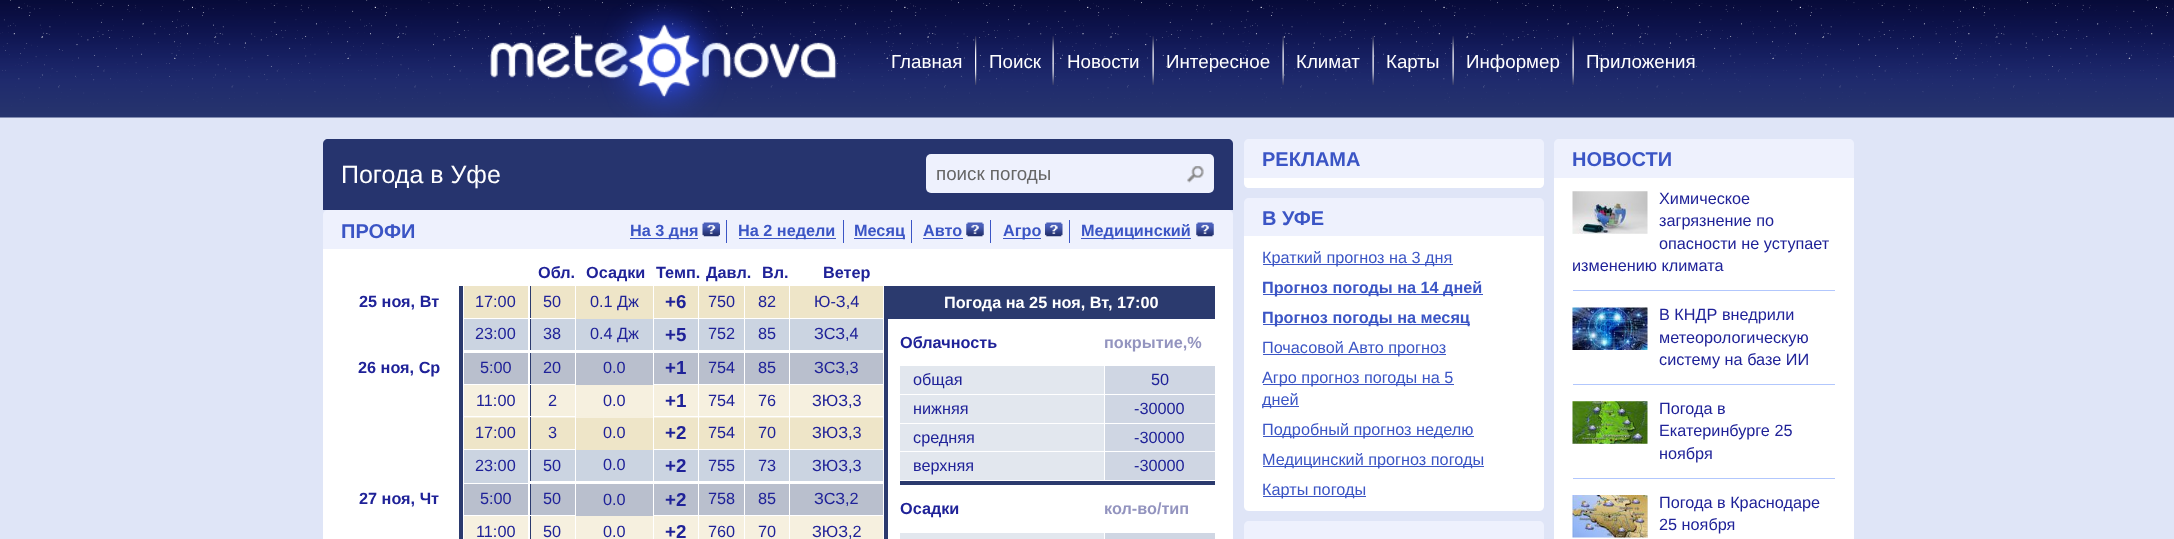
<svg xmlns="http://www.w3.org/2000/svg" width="2174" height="539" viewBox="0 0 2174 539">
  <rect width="100%" height="100%" fill="#dfe5f7"/>
  <image x="0" y="0" width="2174" height="118" href="img1.png"/>
  <image x="490" y="0" width="347" height="117" href="img2.png"/>
  <text x="891" y="68" font-family="Liberation Sans" font-size="18.75" fill="#ffffff">Главная</text>
  <image x="975" y="36" width="2" height="49" href="img3.png"/>
  <text x="989" y="68" font-family="Liberation Sans" font-size="18.75" fill="#ffffff">Поиск</text>
  <image x="1052" y="36" width="2" height="49" href="img4.png"/>
  <text x="1067" y="68" font-family="Liberation Sans" font-size="18.75" fill="#ffffff">Новости</text>
  <image x="1152" y="36" width="2" height="49" href="img5.png"/>
  <text x="1166" y="68" font-family="Liberation Sans" font-size="18.75" fill="#ffffff">Интересное</text>
  <image x="1282" y="36" width="2" height="49" href="img6.png"/>
  <text x="1296" y="68" font-family="Liberation Sans" font-size="18.75" fill="#ffffff">Климат</text>
  <image x="1372" y="36" width="2" height="49" href="img7.png"/>
  <text x="1386" y="68" font-family="Liberation Sans" font-size="18.75" fill="#ffffff">Карты</text>
  <image x="1452" y="36" width="2" height="49" href="img8.png"/>
  <text x="1466" y="68" font-family="Liberation Sans" font-size="18.75" fill="#ffffff">Информер</text>
  <image x="1572" y="36" width="2" height="49" href="img9.png"/>
  <text x="1586" y="68" font-family="Liberation Sans" font-size="18.75" fill="#ffffff">Приложения</text>
  <path d="M328 139H1228C1231 139 1233 141 1233 144V210H323V144C323 141 325 139 328 139Z" fill="#26346e"/>
  <text x="341" y="183" font-family="Liberation Sans" font-size="25" fill="#ffffff">Погода в Уфе</text>
  <rect x="926" y="154" width="288" height="39" rx="5" fill="#eef1fd"/>
  <text x="936" y="180" font-family="Liberation Sans" font-size="18.75" fill="#666666">поиск погоды</text>
  <image x="1187" y="166" width="17" height="17" href="img10.png"/>
  <path d="M328 210H1228C1231 210 1233 212 1233 215V249H323V215C323 212 325 210 328 210Z" fill="#eef1fd"/>
  <text x="341" y="238" font-family="Liberation Sans" font-size="20" font-weight="bold" fill="#3b55c5">ПРОФИ</text>
  <rect x="726" y="220" width="1" height="23" fill="#3b55c5"/>
  <rect x="630" y="238" width="68" height="1" fill="#3b55c5"/>
  <text x="630" y="236" font-family="Liberation Sans" font-size="16.25" font-weight="bold" fill="#3b55c5">На 3 дня</text>
  <image x="702" y="222" width="18" height="15" href="img11.png"/>
  <rect x="843" y="220" width="1" height="23" fill="#3b55c5"/>
  <rect x="739" y="238" width="97" height="1" fill="#3b55c5"/>
  <text x="738" y="236" font-family="Liberation Sans" font-size="16.25" font-weight="bold" fill="#3b55c5">На 2 недели</text>
  <rect x="911" y="220" width="1" height="23" fill="#3b55c5"/>
  <rect x="854" y="238" width="51" height="1" fill="#3b55c5"/>
  <text x="854" y="236" font-family="Liberation Sans" font-size="16.25" font-weight="bold" fill="#3b55c5">Месяц</text>
  <rect x="990" y="220" width="1" height="23" fill="#3b55c5"/>
  <text x="923" y="236" font-family="Liberation Sans" font-size="16.25" font-weight="bold" fill="#3b55c5">Авто</text>
  <rect x="923" y="238" width="40" height="1" fill="#3b55c5"/>
  <image x="966" y="222" width="18" height="15" href="img12.png"/>
  <rect x="1069" y="220" width="1" height="23" fill="#3b55c5"/>
  <rect x="1003" y="238" width="38" height="1" fill="#3b55c5"/>
  <text x="1003" y="236" font-family="Liberation Sans" font-size="16.25" font-weight="bold" fill="#3b55c5">Агро</text>
  <image x="1045" y="222" width="18" height="15" href="img13.png"/>
  <rect x="1081" y="238" width="110" height="1" fill="#3b55c5"/>
  <text x="1081" y="236" font-family="Liberation Sans" font-size="16.25" font-weight="bold" fill="#3b55c5">Медицинский</text>
  <image x="1196" y="222" width="18" height="15" href="img12.png"/>
  <rect x="323" y="249" width="910" height="290" fill="#ffffff"/>
  <text x="538" y="278" font-family="Liberation Sans" font-size="16.25" font-weight="bold" fill="#1f2298">Обл.</text>
  <text x="586" y="278" font-family="Liberation Sans" font-size="16.25" font-weight="bold" fill="#1f2298">Осадки</text>
  <text x="656" y="278" font-family="Liberation Sans" font-size="16.25" font-weight="bold" fill="#1f2298">Темп.</text>
  <text x="706" y="278" font-family="Liberation Sans" font-size="16.25" font-weight="bold" fill="#1f2298">Давл.</text>
  <text x="762" y="278" font-family="Liberation Sans" font-size="16.25" font-weight="bold" fill="#1f2298">Вл.</text>
  <text x="823" y="278" font-family="Liberation Sans" font-size="16.25" font-weight="bold" fill="#1f2298">Ветер</text>
  <rect x="464" y="286" width="419" height="33" fill="#eee5c8"/>
  <text x="359" y="307" font-family="Liberation Sans" font-size="16.25" font-weight="bold" fill="#1f2298">25 ноя, Вт</text>
  <rect x="459" y="286" width="4" height="253" fill="#2b3a6e"/>
  <rect x="530" y="286" width="1" height="33" fill="#2b3a6e"/>
  <rect x="464" y="319" width="419" height="31" fill="#cbd4e1"/>
  <rect x="464" y="353" width="419" height="32" fill="#b9bfcd"/>
  <rect x="530" y="351" width="1" height="34" fill="#2b3a6e"/>
  <rect x="464" y="385" width="419" height="33" fill="#f6f0df"/>
  <rect x="530" y="385" width="1" height="33" fill="#2b3a6e"/>
  <rect x="464" y="418" width="419" height="32" fill="#eee5c8"/>
  <rect x="530" y="418" width="1" height="32" fill="#2b3a6e"/>
  <rect x="464" y="450" width="419" height="33" fill="#cbd4e1"/>
  <rect x="464" y="484" width="419" height="32" fill="#b9bfcd"/>
  <rect x="530" y="483" width="1" height="33" fill="#2b3a6e"/>
  <rect x="464" y="516" width="419" height="23" fill="#f6f0df"/>
  <rect x="528" y="515" width="2" height="24" fill="#ffffff"/>
  <rect x="575" y="286" width="1" height="253" fill="#ffffff"/>
  <rect x="529" y="515" width="47" height="1" fill="#ffffff"/>
  <rect x="528" y="483" width="2" height="33" fill="#ffffff"/>
  <rect x="528" y="449" width="2" height="35" fill="#ffffff"/>
  <rect x="529" y="449" width="47" height="1" fill="#ffffff"/>
  <rect x="528" y="416" width="2" height="34" fill="#ffffff"/>
  <rect x="529" y="416" width="47" height="1" fill="#ffffff"/>
  <rect x="528" y="384" width="2" height="34" fill="#ffffff"/>
  <rect x="529" y="384" width="47" height="1" fill="#ffffff"/>
  <rect x="528" y="351" width="2" height="34" fill="#ffffff"/>
  <rect x="528" y="318" width="2" height="35" fill="#ffffff"/>
  <rect x="529" y="318" width="47" height="1" fill="#ffffff"/>
  <rect x="528" y="286" width="2" height="33" fill="#ffffff"/>
  <rect x="463" y="318" width="66" height="1" fill="#ffffff"/>
  <text x="475" y="307" font-family="Liberation Sans" font-size="16.25" fill="#1f2298">17:00</text>
  <text x="543" y="307" font-family="Liberation Sans" font-size="16.25" fill="#1f2298">50</text>
  <rect x="789" y="515" width="1" height="24" fill="#ffffff"/>
  <rect x="789" y="515" width="95" height="1" fill="#ffffff"/>
  <rect x="789" y="449" width="1" height="67" fill="#ffffff"/>
  <rect x="789" y="449" width="95" height="1" fill="#ffffff"/>
  <rect x="789" y="416" width="1" height="34" fill="#ffffff"/>
  <rect x="789" y="416" width="95" height="1" fill="#ffffff"/>
  <rect x="789" y="384" width="1" height="34" fill="#ffffff"/>
  <rect x="789" y="384" width="95" height="1" fill="#ffffff"/>
  <rect x="789" y="318" width="1" height="67" fill="#ffffff"/>
  <rect x="789" y="318" width="95" height="1" fill="#ffffff"/>
  <rect x="789" y="286" width="1" height="33" fill="#ffffff"/>
  <rect x="744" y="515" width="1" height="24" fill="#ffffff"/>
  <rect x="744" y="515" width="46" height="1" fill="#ffffff"/>
  <rect x="744" y="449" width="1" height="67" fill="#ffffff"/>
  <rect x="744" y="449" width="46" height="1" fill="#ffffff"/>
  <rect x="744" y="416" width="1" height="34" fill="#ffffff"/>
  <rect x="744" y="416" width="46" height="1" fill="#ffffff"/>
  <rect x="744" y="384" width="1" height="34" fill="#ffffff"/>
  <rect x="744" y="384" width="46" height="1" fill="#ffffff"/>
  <rect x="744" y="318" width="1" height="67" fill="#ffffff"/>
  <rect x="744" y="318" width="46" height="1" fill="#ffffff"/>
  <rect x="744" y="286" width="1" height="33" fill="#ffffff"/>
  <rect x="698" y="515" width="1" height="24" fill="#ffffff"/>
  <rect x="698" y="515" width="47" height="1" fill="#ffffff"/>
  <rect x="698" y="449" width="1" height="67" fill="#ffffff"/>
  <rect x="698" y="449" width="47" height="1" fill="#ffffff"/>
  <rect x="698" y="416" width="1" height="34" fill="#ffffff"/>
  <rect x="698" y="416" width="47" height="1" fill="#ffffff"/>
  <rect x="698" y="384" width="1" height="34" fill="#ffffff"/>
  <rect x="698" y="384" width="47" height="1" fill="#ffffff"/>
  <rect x="698" y="318" width="1" height="67" fill="#ffffff"/>
  <rect x="698" y="318" width="47" height="1" fill="#ffffff"/>
  <rect x="698" y="286" width="1" height="33" fill="#ffffff"/>
  <rect x="653" y="515" width="1" height="24" fill="#ffffff"/>
  <rect x="653" y="515" width="46" height="1" fill="#ffffff"/>
  <rect x="653" y="449" width="1" height="67" fill="#ffffff"/>
  <rect x="653" y="449" width="46" height="1" fill="#ffffff"/>
  <rect x="653" y="416" width="1" height="34" fill="#ffffff"/>
  <rect x="653" y="416" width="46" height="1" fill="#ffffff"/>
  <rect x="653" y="384" width="1" height="34" fill="#ffffff"/>
  <rect x="653" y="384" width="46" height="1" fill="#ffffff"/>
  <rect x="653" y="318" width="1" height="67" fill="#ffffff"/>
  <rect x="653" y="318" width="46" height="1" fill="#ffffff"/>
  <rect x="653" y="286" width="1" height="33" fill="#ffffff"/>
  <text x="590" y="307" font-family="Liberation Sans" font-size="16.25" fill="#1f2298">0.1 Дж</text>
  <text x="665" y="308" font-family="Liberation Sans" font-size="18.75" font-weight="bold" fill="#1f2298">+6</text>
  <text x="708" y="307" font-family="Liberation Sans" font-size="16.25" fill="#1f2298">750</text>
  <text x="758" y="307" font-family="Liberation Sans" font-size="16.25" fill="#1f2298">82</text>
  <text x="814" y="307" font-family="Liberation Sans" font-size="16.25" fill="#1f2298">Ю-З,4</text>
  <text x="475" y="339" font-family="Liberation Sans" font-size="16.25" fill="#1f2298">23:00</text>
  <rect x="530" y="319" width="1" height="32" fill="#2b3a6e"/>
  <text x="543" y="339" font-family="Liberation Sans" font-size="16.25" fill="#1f2298">38</text>
  <text x="590" y="339" font-family="Liberation Sans" font-size="16.25" fill="#1f2298">0.4 Дж</text>
  <text x="665" y="341" font-family="Liberation Sans" font-size="18.75" font-weight="bold" fill="#1f2298">+5</text>
  <text x="708" y="339" font-family="Liberation Sans" font-size="16.25" fill="#1f2298">752</text>
  <text x="758" y="339" font-family="Liberation Sans" font-size="16.25" fill="#1f2298">85</text>
  <text x="814" y="339" font-family="Liberation Sans" font-size="16.25" fill="#1f2298">ЗСЗ,4</text>
  <text x="358" y="373" font-family="Liberation Sans" font-size="16.25" font-weight="bold" fill="#1f2298">26 ноя, Ср</text>
  <rect x="463" y="384" width="66" height="1" fill="#ffffff"/>
  <text x="480" y="373" font-family="Liberation Sans" font-size="16.25" fill="#1f2298">5:00</text>
  <rect x="529" y="350" width="2" height="3" fill="#ffffff"/>
  <text x="543" y="373" font-family="Liberation Sans" font-size="16.25" fill="#1f2298">20</text>
  <text x="603" y="373" font-family="Liberation Sans" font-size="16.25" fill="#1f2298">0.0</text>
  <text x="665" y="374" font-family="Liberation Sans" font-size="18.75" font-weight="bold" fill="#1f2298">+1</text>
  <text x="708" y="373" font-family="Liberation Sans" font-size="16.25" fill="#1f2298">754</text>
  <text x="758" y="373" font-family="Liberation Sans" font-size="16.25" fill="#1f2298">85</text>
  <text x="814" y="373" font-family="Liberation Sans" font-size="16.25" fill="#1f2298">ЗСЗ,3</text>
  <rect x="463" y="416" width="66" height="1" fill="#ffffff"/>
  <text x="476" y="406" font-family="Liberation Sans" font-size="16.25" fill="#1f2298">11:00</text>
  <text x="548" y="406" font-family="Liberation Sans" font-size="16.25" fill="#1f2298">2</text>
  <text x="603" y="406" font-family="Liberation Sans" font-size="16.25" fill="#1f2298">0.0</text>
  <text x="665" y="407" font-family="Liberation Sans" font-size="18.75" font-weight="bold" fill="#1f2298">+1</text>
  <text x="708" y="406" font-family="Liberation Sans" font-size="16.25" fill="#1f2298">754</text>
  <text x="758" y="406" font-family="Liberation Sans" font-size="16.25" fill="#1f2298">76</text>
  <text x="812" y="406" font-family="Liberation Sans" font-size="16.25" fill="#1f2298">ЗЮЗ,3</text>
  <rect x="463" y="449" width="66" height="1" fill="#ffffff"/>
  <text x="475" y="438" font-family="Liberation Sans" font-size="16.25" fill="#1f2298">17:00</text>
  <text x="548" y="438" font-family="Liberation Sans" font-size="16.25" fill="#1f2298">3</text>
  <text x="603" y="438" font-family="Liberation Sans" font-size="16.25" fill="#1f2298">0.0</text>
  <text x="665" y="439" font-family="Liberation Sans" font-size="18.75" font-weight="bold" fill="#1f2298">+2</text>
  <text x="708" y="438" font-family="Liberation Sans" font-size="16.25" fill="#1f2298">754</text>
  <text x="758" y="438" font-family="Liberation Sans" font-size="16.25" fill="#1f2298">70</text>
  <text x="812" y="438" font-family="Liberation Sans" font-size="16.25" fill="#1f2298">ЗЮЗ,3</text>
  <text x="475" y="471" font-family="Liberation Sans" font-size="16.25" fill="#1f2298">23:00</text>
  <rect x="530" y="450" width="1" height="33" fill="#2b3a6e"/>
  <text x="543" y="471" font-family="Liberation Sans" font-size="16.25" fill="#1f2298">50</text>
  <text x="603" y="470" font-family="Liberation Sans" font-size="16.25" fill="#1f2298">0.0</text>
  <text x="665" y="472" font-family="Liberation Sans" font-size="18.75" font-weight="bold" fill="#1f2298">+2</text>
  <text x="708" y="471" font-family="Liberation Sans" font-size="16.25" fill="#1f2298">755</text>
  <text x="758" y="471" font-family="Liberation Sans" font-size="16.25" fill="#1f2298">73</text>
  <text x="812" y="471" font-family="Liberation Sans" font-size="16.25" fill="#1f2298">ЗЮЗ,3</text>
  <text x="359" y="504" font-family="Liberation Sans" font-size="16.25" font-weight="bold" fill="#1f2298">27 ноя, Чт</text>
  <rect x="463" y="515" width="66" height="1" fill="#ffffff"/>
  <text x="480" y="504" font-family="Liberation Sans" font-size="16.25" fill="#1f2298">5:00</text>
  <rect x="574" y="481" width="311" height="2" fill="#ffffff"/>
  <rect x="529" y="481" width="47" height="3" fill="#ffffff"/>
  <text x="543" y="504" font-family="Liberation Sans" font-size="16.25" fill="#1f2298">50</text>
  <text x="603" y="505" font-family="Liberation Sans" font-size="16.25" fill="#1f2298">0.0</text>
  <text x="665" y="506" font-family="Liberation Sans" font-size="18.75" font-weight="bold" fill="#1f2298">+2</text>
  <text x="708" y="504" font-family="Liberation Sans" font-size="16.25" fill="#1f2298">758</text>
  <text x="758" y="504" font-family="Liberation Sans" font-size="16.25" fill="#1f2298">85</text>
  <text x="814" y="504" font-family="Liberation Sans" font-size="16.25" fill="#1f2298">ЗСЗ,2</text>
  <text x="476" y="537" font-family="Liberation Sans" font-size="16.25" fill="#1f2298">11:00</text>
  <rect x="530" y="516" width="1" height="23" fill="#2b3a6e"/>
  <text x="543" y="537" font-family="Liberation Sans" font-size="16.25" fill="#1f2298">50</text>
  <text x="603" y="537" font-family="Liberation Sans" font-size="16.25" fill="#1f2298">0.0</text>
  <text x="665" y="538" font-family="Liberation Sans" font-size="18.75" font-weight="bold" fill="#1f2298">+2</text>
  <text x="708" y="537" font-family="Liberation Sans" font-size="16.25" fill="#1f2298">760</text>
  <text x="758" y="537" font-family="Liberation Sans" font-size="16.25" fill="#1f2298">70</text>
  <text x="812" y="537" font-family="Liberation Sans" font-size="16.25" fill="#1f2298">ЗЮЗ,2</text>
  <rect x="884" y="286" width="4" height="253" fill="#2b3a6e"/>
  <rect x="888" y="286" width="327" height="33" fill="#2b3a6e"/>
  <text x="944" y="308" font-family="Liberation Sans" font-size="16.25" font-weight="bold" fill="#ffffff">Погода на 25 ноя, Вт, 17:00</text>
  <text x="900" y="348" font-family="Liberation Sans" font-size="16.25" font-weight="bold" fill="#1f2298">Облачность</text>
  <text x="1104" y="348" font-family="Liberation Sans" font-size="16.25" font-weight="bold" fill="#9394bf">покрытие,%</text>
  <rect x="900" y="366" width="204" height="28" fill="#e2e7ee"/>
  <text x="913" y="385" font-family="Liberation Sans" font-size="16.25" fill="#1f2298">общая</text>
  <rect x="1105" y="366" width="110" height="28" fill="#cfd6e3"/>
  <text x="1151" y="385" font-family="Liberation Sans" font-size="16.25" fill="#1f2298">50</text>
  <rect x="900" y="395" width="204" height="28" fill="#e2e7ee"/>
  <text x="913" y="414" font-family="Liberation Sans" font-size="16.25" fill="#1f2298">нижняя</text>
  <rect x="1105" y="395" width="110" height="28" fill="#cfd6e3"/>
  <text x="1134" y="414" font-family="Liberation Sans" font-size="16.25" fill="#1f2298">-30000</text>
  <rect x="900" y="424" width="204" height="56" fill="#e2e7ee"/>
  <text x="913" y="443" font-family="Liberation Sans" font-size="16.25" fill="#1f2298">средняя</text>
  <rect x="1105" y="424" width="110" height="56" fill="#cfd6e3"/>
  <rect x="900" y="451" width="316" height="1" fill="#ffffff"/>
  <text x="1134" y="443" font-family="Liberation Sans" font-size="16.25" fill="#1f2298">-30000</text>
  <text x="913" y="471" font-family="Liberation Sans" font-size="16.25" fill="#1f2298">верхняя</text>
  <text x="1134" y="471" font-family="Liberation Sans" font-size="16.25" fill="#1f2298">-30000</text>
  <rect x="900" y="481" width="315" height="4" fill="#2b3a6e"/>
  <text x="900" y="514" font-family="Liberation Sans" font-size="16.25" font-weight="bold" fill="#1f2298">Осадки</text>
  <text x="1104" y="514" font-family="Liberation Sans" font-size="16.25" font-weight="bold" fill="#9394bf">кол-во/тип</text>
  <rect x="900" y="533" width="204" height="6" fill="#e2e7ee"/>
  <rect x="1104" y="533" width="111" height="6" fill="#cfd6e3"/>
  <rect x="1104" y="533" width="1" height="6" fill="#ffffff"/>
  <path d="M1249 139H1539C1542 139 1544 141 1544 144V178H1244V144C1244 141 1246 139 1249 139Z" fill="#eef1fd"/>
  <text x="1262" y="166" font-family="Liberation Sans" font-size="20" font-weight="bold" fill="#3b55c5">РЕКЛАМА</text>
  <path d="M1244 178H1544V183C1544 186 1542 188 1539 188H1249C1246 188 1244 186 1244 183Z" fill="#ffffff"/>
  <path d="M1249 198H1539C1542 198 1544 200 1544 203V236H1244V203C1244 200 1246 198 1249 198Z" fill="#eef1fd"/>
  <text x="1262" y="225" font-family="Liberation Sans" font-size="20" font-weight="bold" fill="#3b55c5">В УФЕ</text>
  <rect x="1244" y="236" width="300" height="265" fill="#ffffff"/>
  <rect x="1263" y="264" width="190" height="1" fill="#3b55c5"/>
  <text x="1262" y="263" font-family="Liberation Sans" font-size="16.25" fill="#3b55c5">Краткий прогноз на 3 дня</text>
  <rect x="1263" y="294" width="220" height="1" fill="#3b55c5"/>
  <text x="1262" y="293" font-family="Liberation Sans" font-size="16.25" font-weight="bold" fill="#3b55c5">Прогноз погоды на 14 дней</text>
  <rect x="1263" y="324" width="207" height="1" fill="#3b55c5"/>
  <text x="1262" y="323" font-family="Liberation Sans" font-size="16.25" font-weight="bold" fill="#3b55c5">Прогноз погоды на месяц</text>
  <rect x="1263" y="354" width="183" height="1" fill="#3b55c5"/>
  <text x="1262" y="353" font-family="Liberation Sans" font-size="16.25" fill="#3b55c5">Почасовой Авто прогноз</text>
  <rect x="1263" y="384" width="191" height="1" fill="#3b55c5"/>
  <text x="1262" y="383" font-family="Liberation Sans" font-size="16.25" fill="#3b55c5">Агро прогноз погоды на 5</text>
  <rect x="1263" y="406" width="36" height="1" fill="#3b55c5"/>
  <text x="1262" y="405" font-family="Liberation Sans" font-size="16.25" fill="#3b55c5">дней</text>
  <rect x="1263" y="436" width="211" height="1" fill="#3b55c5"/>
  <text x="1262" y="435" font-family="Liberation Sans" font-size="16.25" fill="#3b55c5">Подробный прогноз неделю</text>
  <rect x="1263" y="466" width="221" height="1" fill="#3b55c5"/>
  <text x="1262" y="465" font-family="Liberation Sans" font-size="16.25" fill="#3b55c5">Медицинский прогноз погоды</text>
  <rect x="1263" y="496" width="103" height="1" fill="#3b55c5"/>
  <text x="1262" y="495" font-family="Liberation Sans" font-size="16.25" fill="#3b55c5">Карты погоды</text>
  <path d="M1244 501H1544V506C1544 509 1542 511 1539 511H1249C1246 511 1244 509 1244 506Z" fill="#ffffff"/>
  <path d="M1249 521H1539C1542 521 1544 523 1544 526V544H1244V526C1244 523 1246 521 1249 521Z" fill="#eef1fd"/>
  <path d="M1559 139H1849C1852 139 1854 141 1854 144V178H1554V144C1554 141 1556 139 1559 139Z" fill="#eef1fd"/>
  <text x="1572" y="166" font-family="Liberation Sans" font-size="20" font-weight="bold" fill="#3b55c5">НОВОСТИ</text>
  <rect x="1554" y="178" width="300" height="361" fill="#ffffff"/>
  <image x="1572" y="191" width="76" height="43" href="img14.png"/>
  <text x="1659" y="204" font-family="Liberation Sans" font-size="16.25" fill="#1f2298">Химическое</text>
  <text x="1659" y="226" font-family="Liberation Sans" font-size="16.25" fill="#1f2298">загрязнение по</text>
  <text x="1659" y="249" font-family="Liberation Sans" font-size="16.25" fill="#1f2298">опасности не уступает</text>
  <text x="1572" y="271" font-family="Liberation Sans" font-size="16.25" fill="#1f2298">изменению климата</text>
  <rect x="1573" y="290" width="262" height="1" fill="#b2c7fd"/>
  <image x="1572" y="307" width="76" height="43" href="img15.png"/>
  <text x="1659" y="320" font-family="Liberation Sans" font-size="16.25" fill="#1f2298">В КНДР внедрили</text>
  <text x="1659" y="343" font-family="Liberation Sans" font-size="16.25" fill="#1f2298">метеорологическую</text>
  <text x="1659" y="365" font-family="Liberation Sans" font-size="16.25" fill="#1f2298">систему на базе ИИ</text>
  <rect x="1573" y="384" width="262" height="1" fill="#b2c7fd"/>
  <image x="1572" y="401" width="76" height="43" href="img16.png"/>
  <text x="1659" y="414" font-family="Liberation Sans" font-size="16.25" fill="#1f2298">Погода в</text>
  <text x="1659" y="436" font-family="Liberation Sans" font-size="16.25" fill="#1f2298">Екатеринбурге 25</text>
  <text x="1659" y="459" font-family="Liberation Sans" font-size="16.25" fill="#1f2298">ноября</text>
  <rect x="1573" y="478" width="262" height="1" fill="#b2c7fd"/>
  <image x="1572" y="495" width="76" height="43" href="img17.png"/>
  <text x="1659" y="508" font-family="Liberation Sans" font-size="16.25" fill="#1f2298">Погода в Краснодаре</text>
  <text x="1659" y="530" font-family="Liberation Sans" font-size="16.25" fill="#1f2298">25 ноября</text>
</svg>
